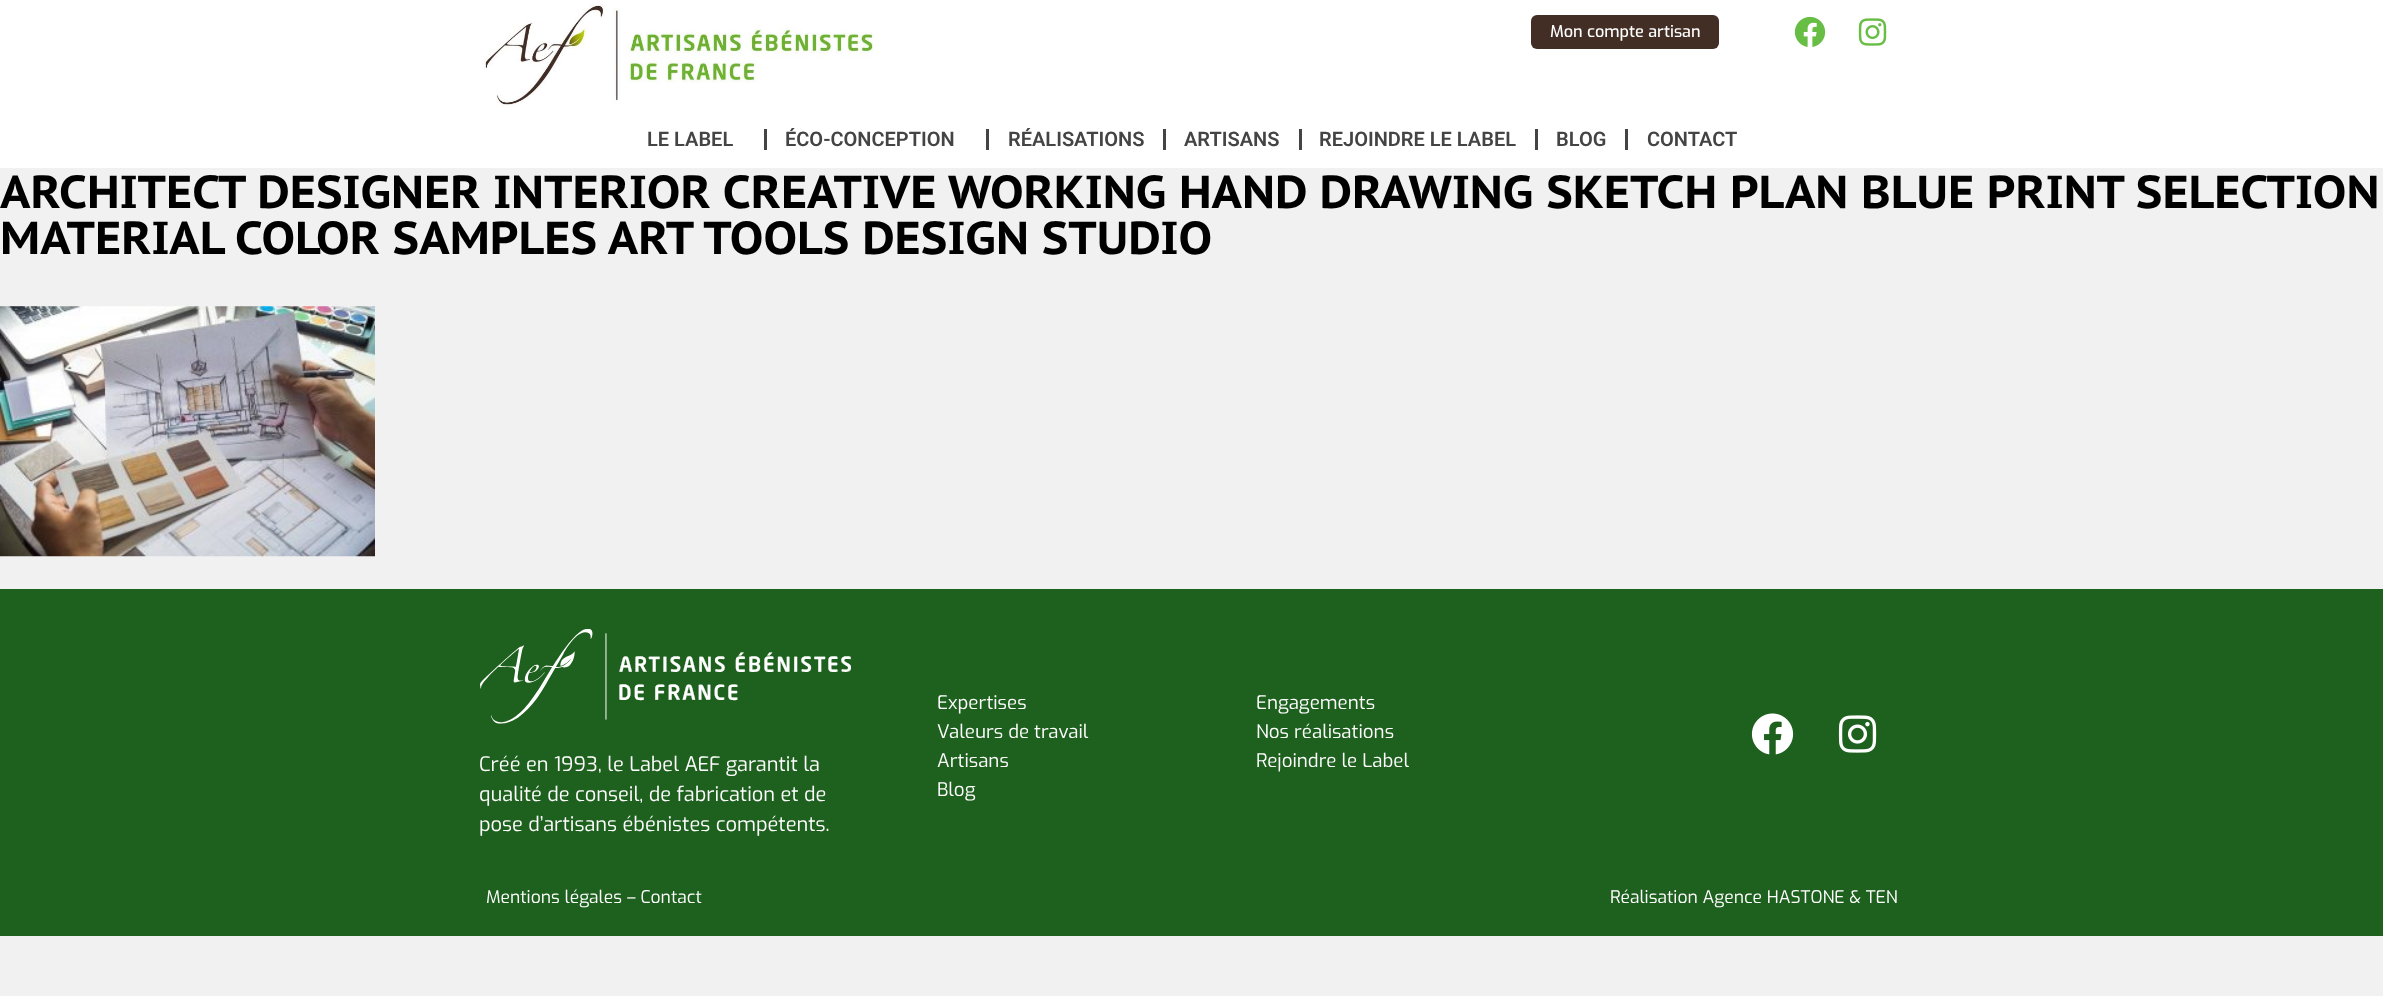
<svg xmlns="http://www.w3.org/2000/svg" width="2383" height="996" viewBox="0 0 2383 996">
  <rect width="100%" height="100%" fill="#f1f1f1"/>
  <rect x="0" y="0" width="2383" height="168" fill="#ffffff"/>
  <image x="484" y="4" width="394" height="103" href="img1.png"/>
  <rect x="1531" y="15" width="188" height="34" rx="6" fill="#432e25"/>
  <text x="1550" y="37" font-family="Exo" font-size="16.25" font-weight="500" fill="#ffffff">Mon compte artisan</text>
  <image x="1794" y="16" width="32" height="31" href="img2.png"/>
  <image x="1858" y="18" width="29" height="28" href="img3.png"/>
  <text x="647" y="146" font-family="Roboto" font-size="20" font-weight="600" fill="#444444">LE LABEL</text>
  <rect x="764" y="129" width="3" height="21" fill="#444444"/>
  <text x="785" y="146" font-family="Roboto" font-size="20" font-weight="600" fill="#444444">ÉCO-CONCEPTION</text>
  <rect x="986" y="129" width="3" height="21" fill="#444444"/>
  <text x="1008" y="146" font-family="Roboto" font-size="20" font-weight="600" fill="#444444">RÉALISATIONS</text>
  <rect x="1163" y="129" width="3" height="21" fill="#444444"/>
  <text x="1184" y="146" font-family="Roboto" font-size="20" font-weight="600" fill="#444444">ARTISANS</text>
  <rect x="1299" y="129" width="3" height="21" fill="#444444"/>
  <text x="1319" y="146" font-family="Roboto" font-size="20" font-weight="600" fill="#444444">REJOINDRE LE LABEL</text>
  <rect x="1535" y="129" width="3" height="21" fill="#444444"/>
  <text x="1556" y="146" font-family="Roboto" font-size="20" font-weight="600" fill="#444444">BLOG</text>
  <rect x="1625" y="129" width="3" height="21" fill="#444444"/>
  <text x="1647" y="146" font-family="Roboto" font-size="20" font-weight="600" fill="#444444">CONTACT</text>
  <text x="0" y="208" font-family="PT Sans Caption" font-size="46.25" font-weight="bold" fill="#000000">ARCHITECT DESIGNER INTERIOR CREATIVE WORKING HAND DRAWING SKETCH PLAN BLUE PRINT SELECTION</text>
  <text x="0" y="254" font-family="PT Sans Caption" font-size="46.25" font-weight="bold" fill="#000000">MATERIAL COLOR SAMPLES ART TOOLS DESIGN STUDIO</text>
  <image x="0" y="306" width="375" height="251" href="img4.png"/>
  <rect x="0" y="589" width="2383" height="347" fill="#1e601e"/>
  <text x="937" y="709" font-family="Exo" font-size="18.75" fill="#ffffff">Expertises</text>
  <text x="1256" y="709" font-family="Exo" font-size="18.75" fill="#ffffff">Engagements</text>
  <text x="937" y="738" font-family="Exo" font-size="18.75" fill="#ffffff">Valeurs de travail</text>
  <text x="1256" y="738" font-family="Exo" font-size="18.75" fill="#ffffff">Nos réalisations</text>
  <text x="937" y="767" font-family="Exo" font-size="18.75" fill="#ffffff">Artisans</text>
  <text x="1256" y="767" font-family="Exo" font-size="18.75" fill="#ffffff">Rejoindre le Label</text>
  <text x="937" y="796" font-family="Exo" font-size="18.75" fill="#ffffff">Blog</text>
  <image x="1751" y="713" width="43" height="42" href="img5.png"/>
  <image x="1838" y="715" width="39" height="38" href="img6.png"/>
  <image x="480" y="629" width="371" height="95" href="img7.png"/>
  <text x="479" y="771" font-family="Exo" font-size="20" fill="#ffffff">Créé en 1993, le Label AEF garantit la</text>
  <text x="479" y="801" font-family="Exo" font-size="20" fill="#ffffff">qualité de conseil, de fabrication et de</text>
  <text x="479" y="831" font-family="Exo" font-size="20" fill="#ffffff">pose d’artisans ébénistes compétents.</text>
  <text x="486" y="903" font-family="Exo" font-size="17.5" fill="#ffffff">Mentions légales – Contact</text>
  <text x="1610" y="903" font-family="Exo" font-size="17.5" fill="#ffffff">Réalisation Agence HASTONE &amp; TEN</text>
</svg>
